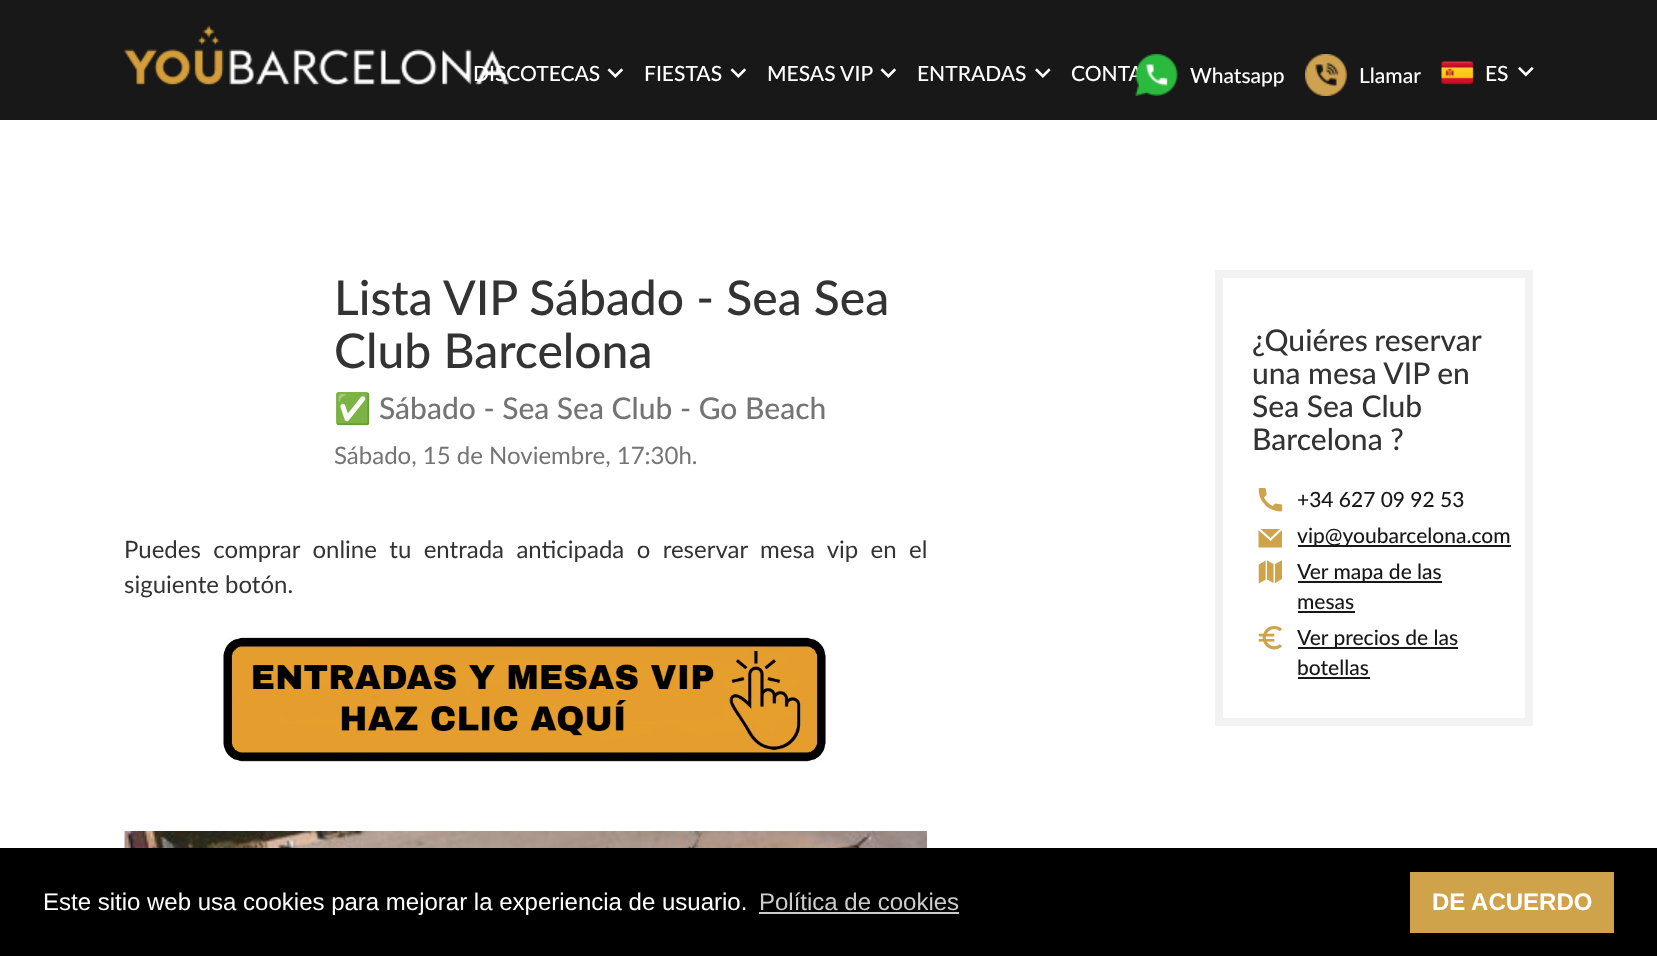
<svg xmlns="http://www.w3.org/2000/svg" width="1657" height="956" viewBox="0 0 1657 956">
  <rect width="100%" height="100%" fill="#ffffff"/>
  <rect x="0" y="0" width="1657" height="120" fill="#181818"/>
  <image x="124" y="25" width="385" height="61" href="img1.png"/>
  <text x="473" y="81" font-family="Lato" font-size="21" font-weight="500" fill="#ffffff">DISCOTECAS</text>
  <image x="607" y="68" width="17" height="10" href="img2.png"/>
  <text x="644" y="81" font-family="Lato" font-size="21" font-weight="500" fill="#ffffff">FIESTAS</text>
  <image x="730" y="68" width="17" height="10" href="img2.png"/>
  <text x="767" y="81" font-family="Lato" font-size="21" font-weight="500" fill="#ffffff">MESAS VIP</text>
  <image x="880" y="68" width="17" height="10" href="img2.png"/>
  <text x="917" y="81" font-family="Lato" font-size="21" font-weight="500" fill="#ffffff">ENTRADAS</text>
  <image x="1035" y="68" width="16" height="10" href="img3.png"/>
  <text x="1071" y="81" font-family="Lato" font-size="21" font-weight="500" fill="#ffffff">CONTA</text>
  <image x="1135" y="54" width="43" height="42" href="img4.png"/>
  <text x="1190" y="83" font-family="Lato" font-size="21" font-weight="500" fill="#ffffff">Whatsapp</text>
  <image x="1305" y="54" width="42" height="42" href="img5.png"/>
  <text x="1359" y="83" font-family="Lato" font-size="21" font-weight="500" fill="#ffffff">Llamar</text>
  <image x="1441" y="61" width="33" height="24" href="img6.png"/>
  <text x="1485" y="81" font-family="Lato" font-size="21" font-weight="500" fill="#ffffff">ES</text>
  <image x="1518" y="66" width="16" height="11" href="img7.png"/>
  <text x="334" y="315" font-family="Lato" font-size="48" font-weight="500" fill="#333333">Lista VIP Sábado - Sea Sea</text>
  <text x="334" y="368" font-family="Lato" font-size="48" font-weight="500" fill="#333333">Club Barcelona</text>
  <text x="334" y="419" font-family="Noto Color Emoji" font-size="30" fill="#747474">✅</text>
  <text x="379" y="419" font-family="Lato" font-size="30" font-weight="500" fill="#747474">Sábado - Sea Sea Club - Go Beach</text>
  <text x="334" y="464" font-family="Lato" font-size="24" fill="#747474">Sábado, 15 de Noviembre, 17:30h.</text>
  <text x="124" y="558" word-spacing="6.25" font-family="Lato" font-size="24" fill="#333333">Puedes comprar online tu entrada anticipada o reservar mesa vip en el</text>
  <text x="124" y="593" font-family="Lato" font-size="24" fill="#333333">siguiente botón.</text>
  <image x="223" y="637" width="603" height="125" href="img8.png"/>
  <image x="124" y="831" width="803" height="17" href="img9.png"/>
  <rect x="1219" y="274" width="310" height="448" fill="none" stroke="#f2f2f2" stroke-width="8"/>
  <text x="1252" y="351" word-spacing="-1" font-family="Lato" font-size="30" font-weight="500" fill="#333333">¿Quiéres reservar</text>
  <text x="1252" y="384" font-family="Lato" font-size="30" font-weight="500" fill="#333333">una mesa VIP en</text>
  <text x="1252" y="417" font-family="Lato" font-size="30" font-weight="500" fill="#333333">Sea Sea Club</text>
  <text x="1252" y="450" font-family="Lato" font-size="30" font-weight="500" fill="#333333">Barcelona ?</text>
  <image x="1258" y="488" width="25" height="24" href="img10.png"/>
  <text x="1297" y="507" font-family="Lato" font-size="21" font-weight="500" fill="#181818">+34 627 09 92 53</text>
  <path d="M1270.5 541L1258.5 530V547.5H1282V530ZM1270.5 538L1260.5 529H1280Z" fill="#cfa349"/>
  <rect x="1298" y="545" width="213" height="2" fill="#181818"/>
  <text x="1297" y="543" font-family="Lato" font-size="21" font-weight="500" fill="#181818">vip@youbarcelona.com</text>
  <image x="1258" y="560" width="24" height="24" href="img11.png"/>
  <rect x="1298" y="581" width="144" height="2" fill="#181818"/>
  <text x="1297" y="579" font-family="Lato" font-size="21" font-weight="500" fill="#181818">Ver mapa de las</text>
  <text x="1297" y="609" font-family="Lato" font-size="21" font-weight="500" fill="#181818">mesas</text>
  <rect x="1298" y="611" width="57" height="2" fill="#181818"/>
  <image x="1258" y="626" width="25" height="24" href="img12.png"/>
  <rect x="1298" y="647" width="160" height="2" fill="#181818"/>
  <text x="1297" y="645" font-family="Lato" font-size="21" font-weight="500" fill="#181818">Ver precios de las</text>
  <text x="1297" y="675" font-family="Lato" font-size="21" font-weight="500" fill="#181818">botellas</text>
  <rect x="1298" y="677" width="72" height="2" fill="#181818"/>
  <rect x="0" y="848" width="1657" height="108" fill="#000000"/>
  <text x="43" y="910" font-family="Liberation Sans" font-size="24" fill="#ffffff">Este sitio web usa cookies para mejorar la experiencia de usuario.</text>
  <text x="759" y="910" font-family="Liberation Sans" font-size="24" fill="#cccccc">Política de cookies</text>
  <rect x="759" y="912" width="200" height="2" fill="#cccccc"/>
  <rect x="1410" y="872" width="204" height="61" fill="#cfa349"/>
  <text x="1432" y="910" font-family="Liberation Sans" font-size="24" font-weight="bold" fill="#ffffff">DE ACUERDO</text>
</svg>
